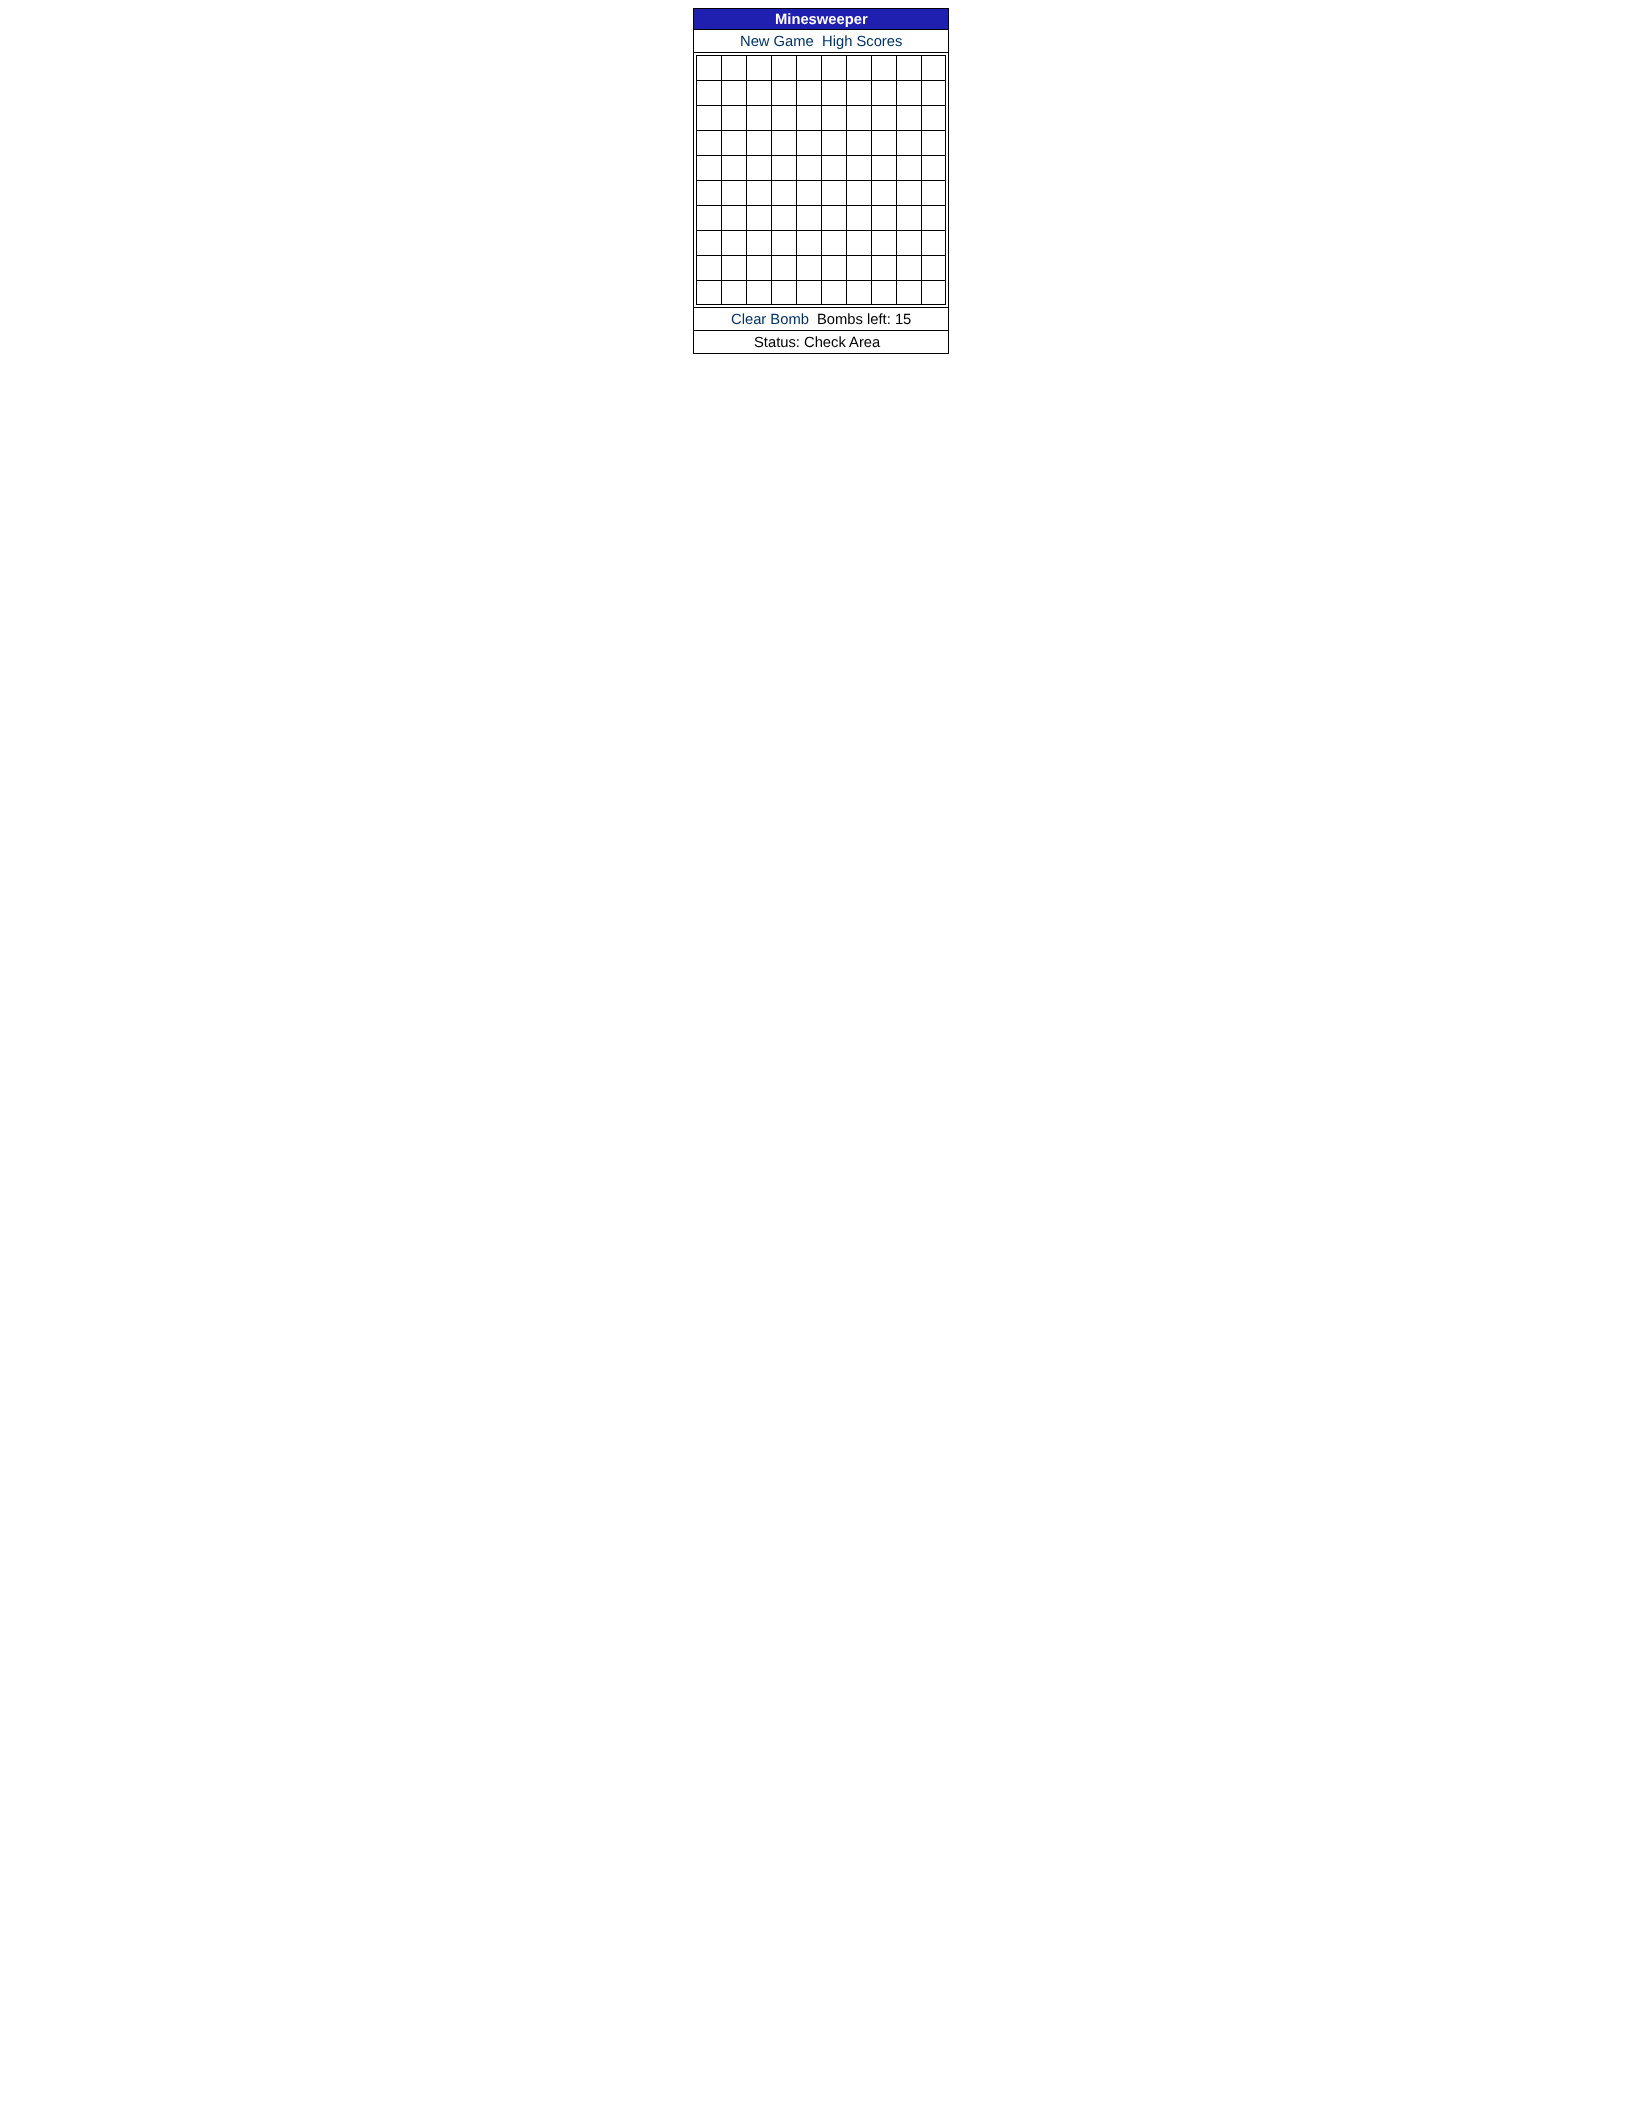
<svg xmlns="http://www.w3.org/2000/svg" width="1642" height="2127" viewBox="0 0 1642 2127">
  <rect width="100%" height="100%" fill="#ffffff"/>
  <rect x="693" y="8" width="256" height="346" fill="#000000"/>
  <rect x="694" y="9" width="254" height="20" fill="#2020b0"/>
  <text x="775" y="24" font-family="Liberation Sans" font-size="14.75" font-weight="bold" fill="#ffffff">Minesweeper</text>
  <rect x="694" y="30" width="254" height="22" fill="#ffffff"/>
  <text x="740" y="46" font-family="Liberation Sans" font-size="14.75" fill="#003366">New Game</text>
  <text x="822" y="46" font-family="Liberation Sans" font-size="14.75" fill="#003366">High Scores</text>
  <rect x="694" y="53" width="254" height="254" fill="#ffffff"/>
  <image x="696" y="55" width="250" height="250" href="img1.png"/>
  <rect x="694" y="308" width="254" height="22" fill="#ffffff"/>
  <text x="731" y="324" font-family="Liberation Sans" font-size="14.75" fill="#003366">Clear Bomb</text>
  <text x="817" y="324" font-family="Liberation Sans" font-size="14.75" fill="#000000">Bombs left: 15</text>
  <rect x="694" y="331" width="254" height="22" fill="#ffffff"/>
  <text x="754" y="347" font-family="Liberation Sans" font-size="14.75" fill="#000000">Status: Check Area</text>
</svg>
